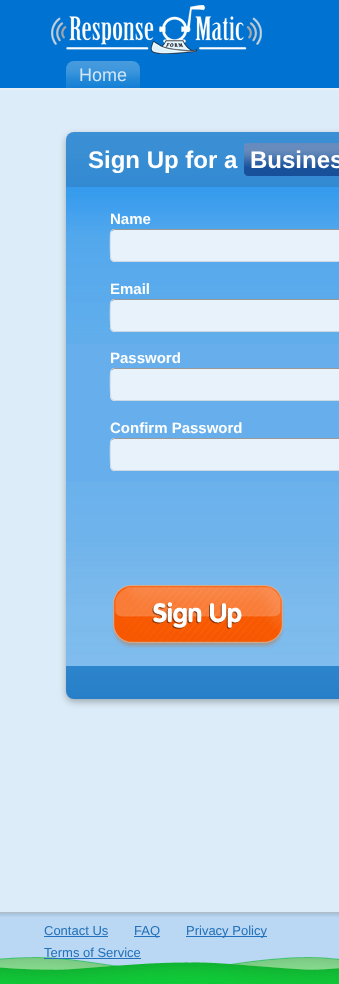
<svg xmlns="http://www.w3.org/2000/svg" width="339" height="984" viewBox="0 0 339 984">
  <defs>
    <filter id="blur1" x="-50%" y="-200%" width="200%" height="500%"><feGaussianBlur stdDeviation="3.5"/></filter>
  </defs>
  <rect width="100%" height="100%" fill="#dcecf8"/>
  <rect x="0" y="0" width="339" height="88" fill="#0072d1"/>
  <image x="51" y="5" width="211" height="49" href="img1.png"/>
  <path d="M74 61H132C136.5 61 140 64.5 140 69V88H66V69C66 64.5 69.5 61 74 61Z" fill="#1580d5"/>
  <image x="66" y="61" width="74" height="25" href="img2.png"/>
  <text x="79" y="81" font-family="Liberation Sans" font-size="18" fill="#d1e6f7">Home</text>
  <rect x="0" y="88" width="339" height="2" fill="#e5f0f7"/>
  <rect x="66" y="135" width="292" height="567" rx="8" fill="#000000" fill-opacity="0.28" filter="url(#blur1)"/>
  <image x="66" y="666" width="273" height="33" href="img3.png"/>
  <image x="66" y="132" width="273" height="55" href="img4.png"/>
  <text x="88" y="168" font-family="Liberation Sans" font-size="24" font-weight="bold" fill="#ffffff">Sign Up for a</text>
  <path d="M248 143H339V176H248C246 176 244 174 244 172V147C244 145 246 143 248 143Z" fill="#18509a"/>
  <image x="244" y="143" width="95" height="24" href="img5.png"/>
  <text x="250" y="168" font-family="Liberation Sans" font-size="24" font-weight="bold" fill="#ffffff">Busines</text>
  <rect x="66" y="344" width="273" height="138" fill="#66afec"/>
  <image x="66" y="482" width="273" height="184" href="img6.png"/>
  <image x="66" y="187" width="273" height="157" href="img7.png"/>
  <text x="110" y="224" font-family="Liberation Sans" font-size="15" font-weight="bold" fill="#ffffff">Name</text>
  <path d="M115 229H339V262H115C112 262 110 260 110 257V234C110 231 112 229 115 229Z" fill="#e8f2fa"/>
  <path d="M112 231C112.5 230 114 229.5 115 229.5H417C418 229.5 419.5 230 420 231" fill="none" stroke="#999999"/>
  <path d="M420 231L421.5 233C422 236 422 257 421 259C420 260.5 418.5 261.5 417 261.5H115C113.5 261.5 112 260.5 111 259C110 257 110 236 110.5 233L112 231" fill="none" stroke="#ccd9e5"/>
  <text x="110" y="294" font-family="Liberation Sans" font-size="15" font-weight="bold" fill="#ffffff">Email</text>
  <path d="M115 299H339V332H115C112 332 110 330 110 327V304C110 301 112 299 115 299Z" fill="#e8f2fa"/>
  <path d="M112 301C112.5 300 114 299.5 115 299.5H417C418 299.5 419.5 300 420 301" fill="none" stroke="#999999"/>
  <path d="M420 301L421.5 303C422 306 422 327 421 329C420 330.5 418.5 331.5 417 331.5H115C113.5 331.5 112 330.5 111 329C110 327 110 306 110.5 303L112 301" fill="none" stroke="#ccd9e5"/>
  <text x="110" y="363" font-family="Liberation Sans" font-size="15" font-weight="bold" fill="#ffffff">Password</text>
  <path d="M115 368H339V401H115C112 401 110 399 110 396V373C110 370 112 368 115 368Z" fill="#e8f2fa"/>
  <path d="M112 370C112.5 369 114 368.5 115 368.5H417C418 368.5 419.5 369 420 370" fill="none" stroke="#999999"/>
  <path d="M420 370L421.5 372C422 375 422 396 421 398C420 399.5 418.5 400.5 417 400.5H115C113.5 400.5 112 399.5 111 398C110 396 110 375 110.5 372L112 370" fill="none" stroke="#ccd9e5"/>
  <text x="110" y="433" font-family="Liberation Sans" font-size="15" font-weight="bold" fill="#ffffff">Confirm Password</text>
  <path d="M115 438H339V471H115C112 471 110 469 110 466V443C110 440 112 438 115 438Z" fill="#e8f2fa"/>
  <path d="M112 440C112.5 439 114 438.5 115 438.5H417C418 438.5 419.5 439 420 440" fill="none" stroke="#999999"/>
  <path d="M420 440L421.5 442C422 445 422 466 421 468C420 469.5 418.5 470.5 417 470.5H115C113.5 470.5 112 469.5 111 468C110 466 110 445 110.5 442L112 440" fill="none" stroke="#ccd9e5"/>
  <image x="112" y="585" width="172" height="64" href="img8.png"/>
  <rect x="0" y="913" width="339" height="53" fill="#bad7f3"/>
  <image x="0" y="957" width="339" height="27" href="img9.png"/>
  <rect x="0" y="912" width="339" height="1" fill="#b0bdc4"/>
  <image x="0" y="913" width="339" height="4" href="img10.png"/>
  <text x="44" y="935" font-family="Liberation Sans" font-size="13" fill="#2271ba">Contact Us</text>
  <rect x="44" y="936" width="64" height="1" fill="#2271ba"/>
  <rect x="134" y="936" width="26" height="1" fill="#2271ba"/>
  <text x="134" y="935" font-family="Liberation Sans" font-size="13" fill="#2271ba">FAQ</text>
  <rect x="186" y="936" width="81" height="1" fill="#2271ba"/>
  <text x="186" y="935" font-family="Liberation Sans" font-size="13" fill="#2271ba">Privacy Policy</text>
  <text x="44" y="957" font-family="Liberation Sans" font-size="13" fill="#2271ba">Terms of Service</text>
  <rect x="44" y="958" width="97" height="1" fill="#2271ba"/>
</svg>
